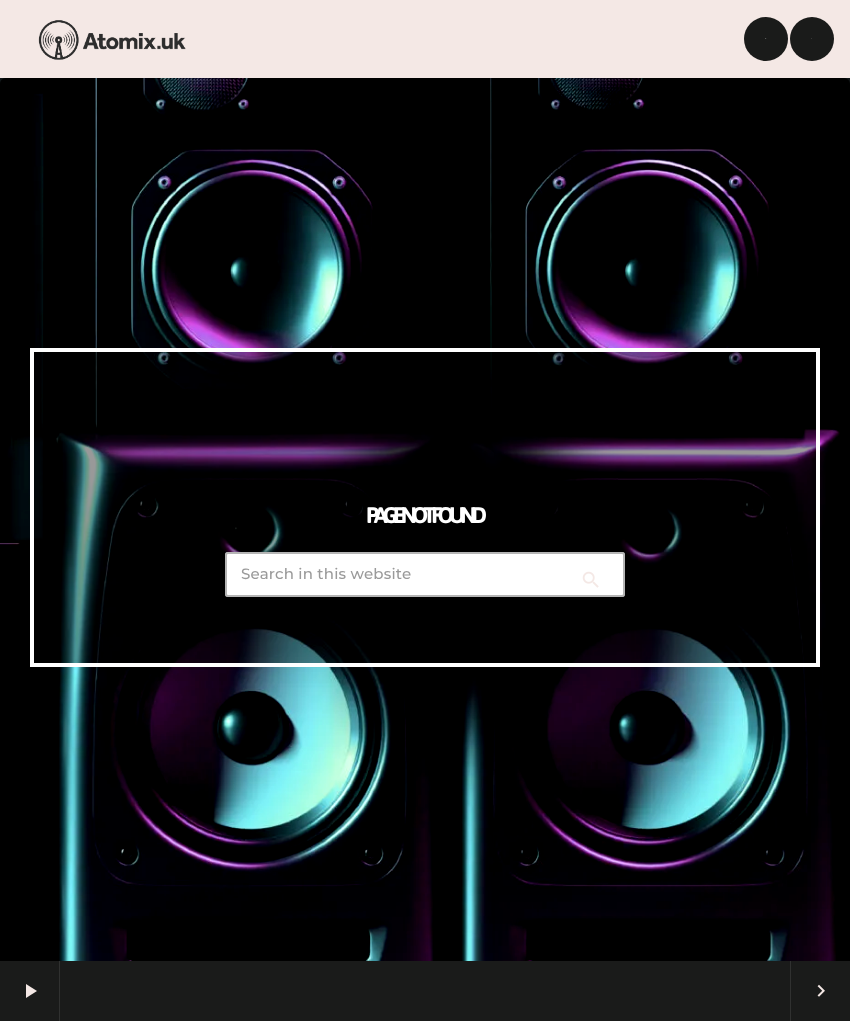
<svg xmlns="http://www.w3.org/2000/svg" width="850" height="1021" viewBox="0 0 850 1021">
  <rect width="100%" height="100%" fill="#f4e8e5"/>
  <image x="38" y="20" width="148" height="40" href="img1.png"/>
  <circle cx="766" cy="39" r="22" fill="#1a1b1a"/>
  <image x="765" y="38" width="2" height="1" href="img2.png"/>
  <circle cx="812" cy="39" r="22" fill="#1a1b1a"/>
  <path d="M811.5 38L812 38.5H811.5Z" fill="#ffffff"/>
  <rect x="0" y="78" width="850" height="6" fill="#111618"/>
  <rect x="0" y="78" width="850" height="919" rx="6" fill="#000000"/>
  <path d="M6 78H15C6.5 78 0 84.5 0 93C0 88-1.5 78 6 78Z" fill="#000000" fill-opacity="0.5"/>
  <image x="0" y="78" width="841" height="883" href="img3.png"/>
  <rect x="32" y="350" width="786" height="315" fill="#000000" fill-opacity="0.4" stroke="#ffffff" stroke-width="4"/>
  <text x="366" y="523" font-family="Jaldi" font-size="26" font-weight="bold" letter-spacing="-5" fill="#ffffff">PAGE NOT FOUND</text>
  <rect x="225" y="552" width="400" height="45" rx="3" fill="#ffffff"/>
  <rect x="226" y="553" width="398" height="43" rx="2" fill="none" stroke="#969696" stroke-opacity="0.7" stroke-width="2"/>
  <text x="241" y="579" font-family="Montserrat" font-size="15" font-weight="500" letter-spacing="0.2" fill="#9a9a9a">Search in this website</text>
  <image x="582" y="571" width="17" height="17" href="img4.png"/>
  <rect x="0" y="961" width="850" height="60" fill="#1a1b1a"/>
  <rect x="59" y="961" width="1" height="60" fill="#303130"/>
  <path d="M26 984L37 991L26 998Z" fill="#f4e8e5"/>
  <rect x="790" y="961" width="1" height="60" fill="#303130"/>
  <image x="817" y="984" width="8" height="13" href="img5.png"/>
</svg>
